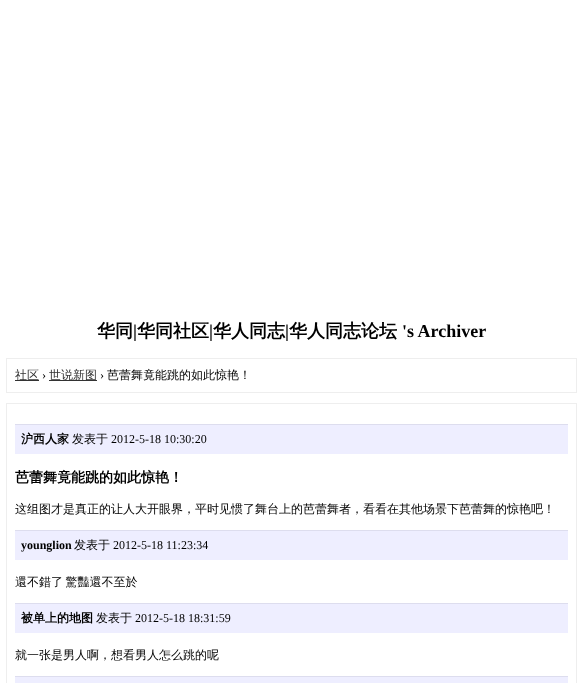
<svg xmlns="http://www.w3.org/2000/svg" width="583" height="683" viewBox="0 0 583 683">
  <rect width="100%" height="100%" fill="#ffffff"/>
  <text x="97" y="337" font-family="WenQuanYi Zen Hei" font-size="18" font-weight="bold" fill="#000000">华同</text>
  <text x="133" y="337" font-family="Liberation Serif" font-size="18" font-weight="bold" fill="#000000">|</text>
  <text x="137" y="337" font-family="WenQuanYi Zen Hei" font-size="18" font-weight="bold" fill="#000000">华同社区</text>
  <text x="209" y="337" font-family="Liberation Serif" font-size="18" font-weight="bold" fill="#000000">|</text>
  <text x="213" y="337" font-family="WenQuanYi Zen Hei" font-size="18" font-weight="bold" fill="#000000">华人同志</text>
  <text x="285" y="337" font-family="Liberation Serif" font-size="18" font-weight="bold" fill="#000000">|</text>
  <text x="289" y="337" font-family="WenQuanYi Zen Hei" font-size="18" font-weight="bold" fill="#000000">华人同志论坛</text>
  <text x="402" y="337" font-family="Liberation Serif" font-size="18" font-weight="bold" fill="#000000">'s Archiver</text>
  <rect x="6.5" y="358.5" width="570" height="34" fill="none" stroke="#eeeeee"/>
  <rect x="15" y="380" width="24" height="1" fill="#333333"/>
  <text x="15" y="379" font-family="WenQuanYi Zen Hei" font-size="12" font-weight="500" fill="#333333">社区</text>
  <text x="42" y="379" font-family="Liberation Serif" font-size="12" fill="#000000">›</text>
  <rect x="49" y="380" width="48" height="1" fill="#333333"/>
  <text x="49" y="379" font-family="WenQuanYi Zen Hei" font-size="12" font-weight="500" fill="#333333">世说新图</text>
  <text x="100" y="379" font-family="Liberation Serif" font-size="12" fill="#000000">›</text>
  <text x="107" y="379" font-family="WenQuanYi Zen Hei" font-size="12" font-weight="500" fill="#000000">芭蕾舞竟能跳的如此惊艳！</text>
  <rect x="6.5" y="403.5" width="570" height="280" fill="none" stroke="#eeeeee"/>
  <rect x="15" y="425" width="553" height="29" fill="#eeeeff"/>
  <rect x="15" y="424" width="553" height="1" fill="#ddddee"/>
  <text x="21" y="443" font-family="WenQuanYi Zen Hei" font-size="12" font-weight="bold" fill="#000000">沪西人家</text>
  <text x="72" y="443" font-family="WenQuanYi Zen Hei" font-size="12" font-weight="500" fill="#000000">发表于</text>
  <text x="111" y="443" font-family="Liberation Serif" font-size="12" fill="#000000">2012-5-18 10:30:20</text>
  <text x="15" y="482" font-family="WenQuanYi Zen Hei" font-size="14" font-weight="bold" fill="#000000">芭蕾舞竟能跳的如此惊艳！</text>
  <text x="15" y="513" font-family="WenQuanYi Zen Hei" font-size="12" font-weight="500" fill="#000000">这组图才是真正的让人大开眼界，平时见惯了舞台上的芭蕾舞者，看看在其他场景下芭蕾舞的惊艳吧！</text>
  <rect x="15" y="531" width="553" height="29" fill="#eeeeff"/>
  <rect x="15" y="530" width="553" height="1" fill="#ddddee"/>
  <text x="21" y="549" font-family="Liberation Serif" font-size="12" font-weight="bold" fill="#000000">younglion</text>
  <text x="74" y="549" font-family="WenQuanYi Zen Hei" font-size="12" font-weight="500" fill="#000000">发表于</text>
  <text x="113" y="549" font-family="Liberation Serif" font-size="12" fill="#000000">2012-5-18 11:23:34</text>
  <text x="15" y="586" word-spacing="-1" font-family="WenQuanYi Zen Hei" font-size="12" font-weight="500" fill="#000000">還不錯了 驚豔還不至於</text>
  <rect x="15" y="604" width="553" height="29" fill="#eeeeff"/>
  <rect x="15" y="603" width="553" height="1" fill="#ddddee"/>
  <text x="21" y="622" font-family="WenQuanYi Zen Hei" font-size="12" font-weight="bold" fill="#000000">被单上的地图</text>
  <text x="96" y="622" font-family="WenQuanYi Zen Hei" font-size="12" font-weight="500" fill="#000000">发表于</text>
  <text x="135" y="622" font-family="Liberation Serif" font-size="12" fill="#000000">2012-5-18 18:31:59</text>
  <text x="15" y="659" font-family="WenQuanYi Zen Hei" font-size="12" font-weight="500" fill="#000000">就一张是男人啊，想看男人怎么跳的呢</text>
  <rect x="15" y="677" width="553" height="6" fill="#eeeeff"/>
  <rect x="15" y="676" width="553" height="1" fill="#ddddee"/>
</svg>
